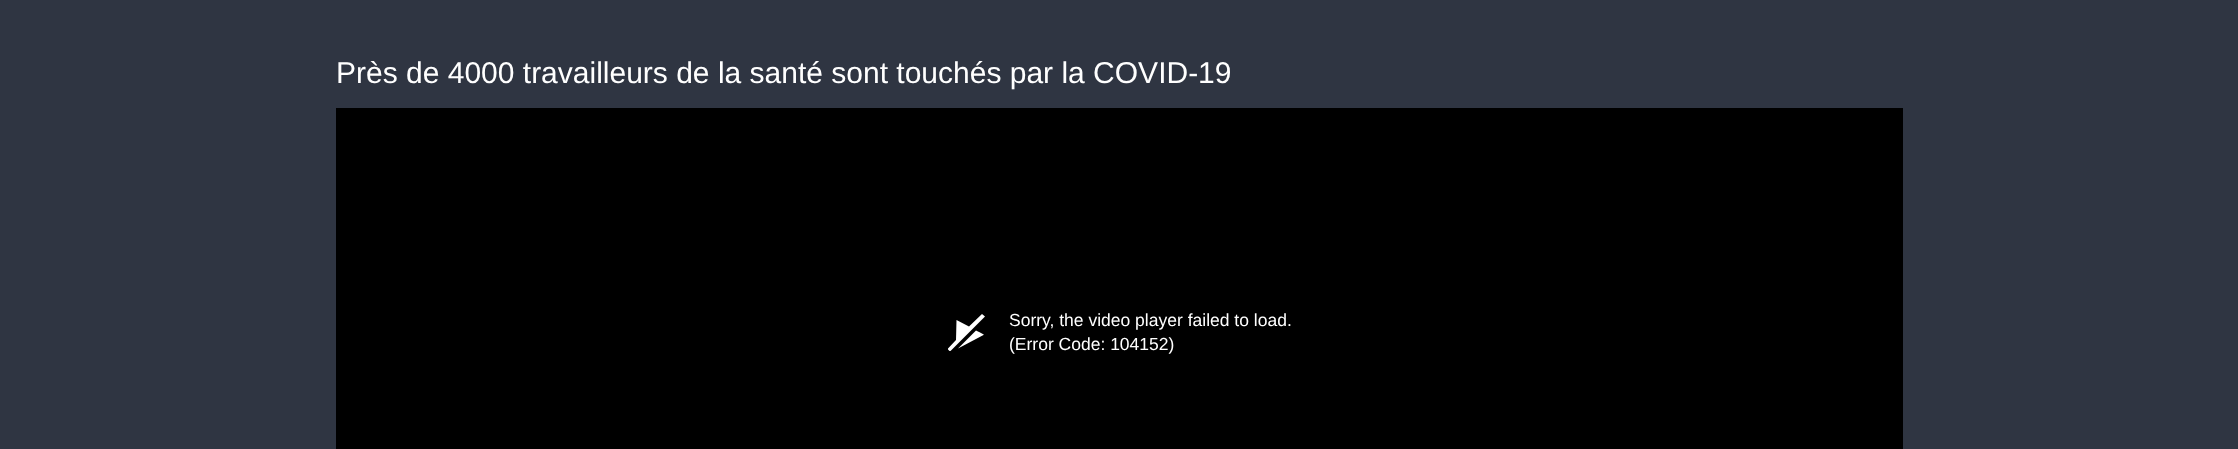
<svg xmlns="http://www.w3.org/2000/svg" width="2238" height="449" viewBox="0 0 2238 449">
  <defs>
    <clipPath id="clip1"><rect x="948" y="314" width="37" height="37"/></clipPath>
  </defs>
  <rect width="100%" height="100%" fill="#2f3542"/>
  <text x="336" y="83" font-family="Liberation Sans" font-size="30" fill="#ffffff">Près de 4000 travailleurs de la santé sont touchés par la COVID-19</text>
  <rect x="336" y="108" width="1567" height="341" fill="#000000"/>
  <g clip-path="url(#clip1)">
    <path d="M983.5 335L958 348.5L976 330.5C983 334 984.5 334.5 983.5 335ZM982 314L969 326.5L956.5 320L956 340L947.5 349L950 351.5L985 316.5Z" fill="#ffffff"/>
  </g>
  <text x="1009" y="326" font-family="Liberation Sans" font-size="17.5" fill="#ffffff">Sorry, the video player failed to load.</text>
  <text x="1009" y="350" font-family="Liberation Sans" font-size="17.5" fill="#ffffff">(Error Code: 104152)</text>
</svg>
